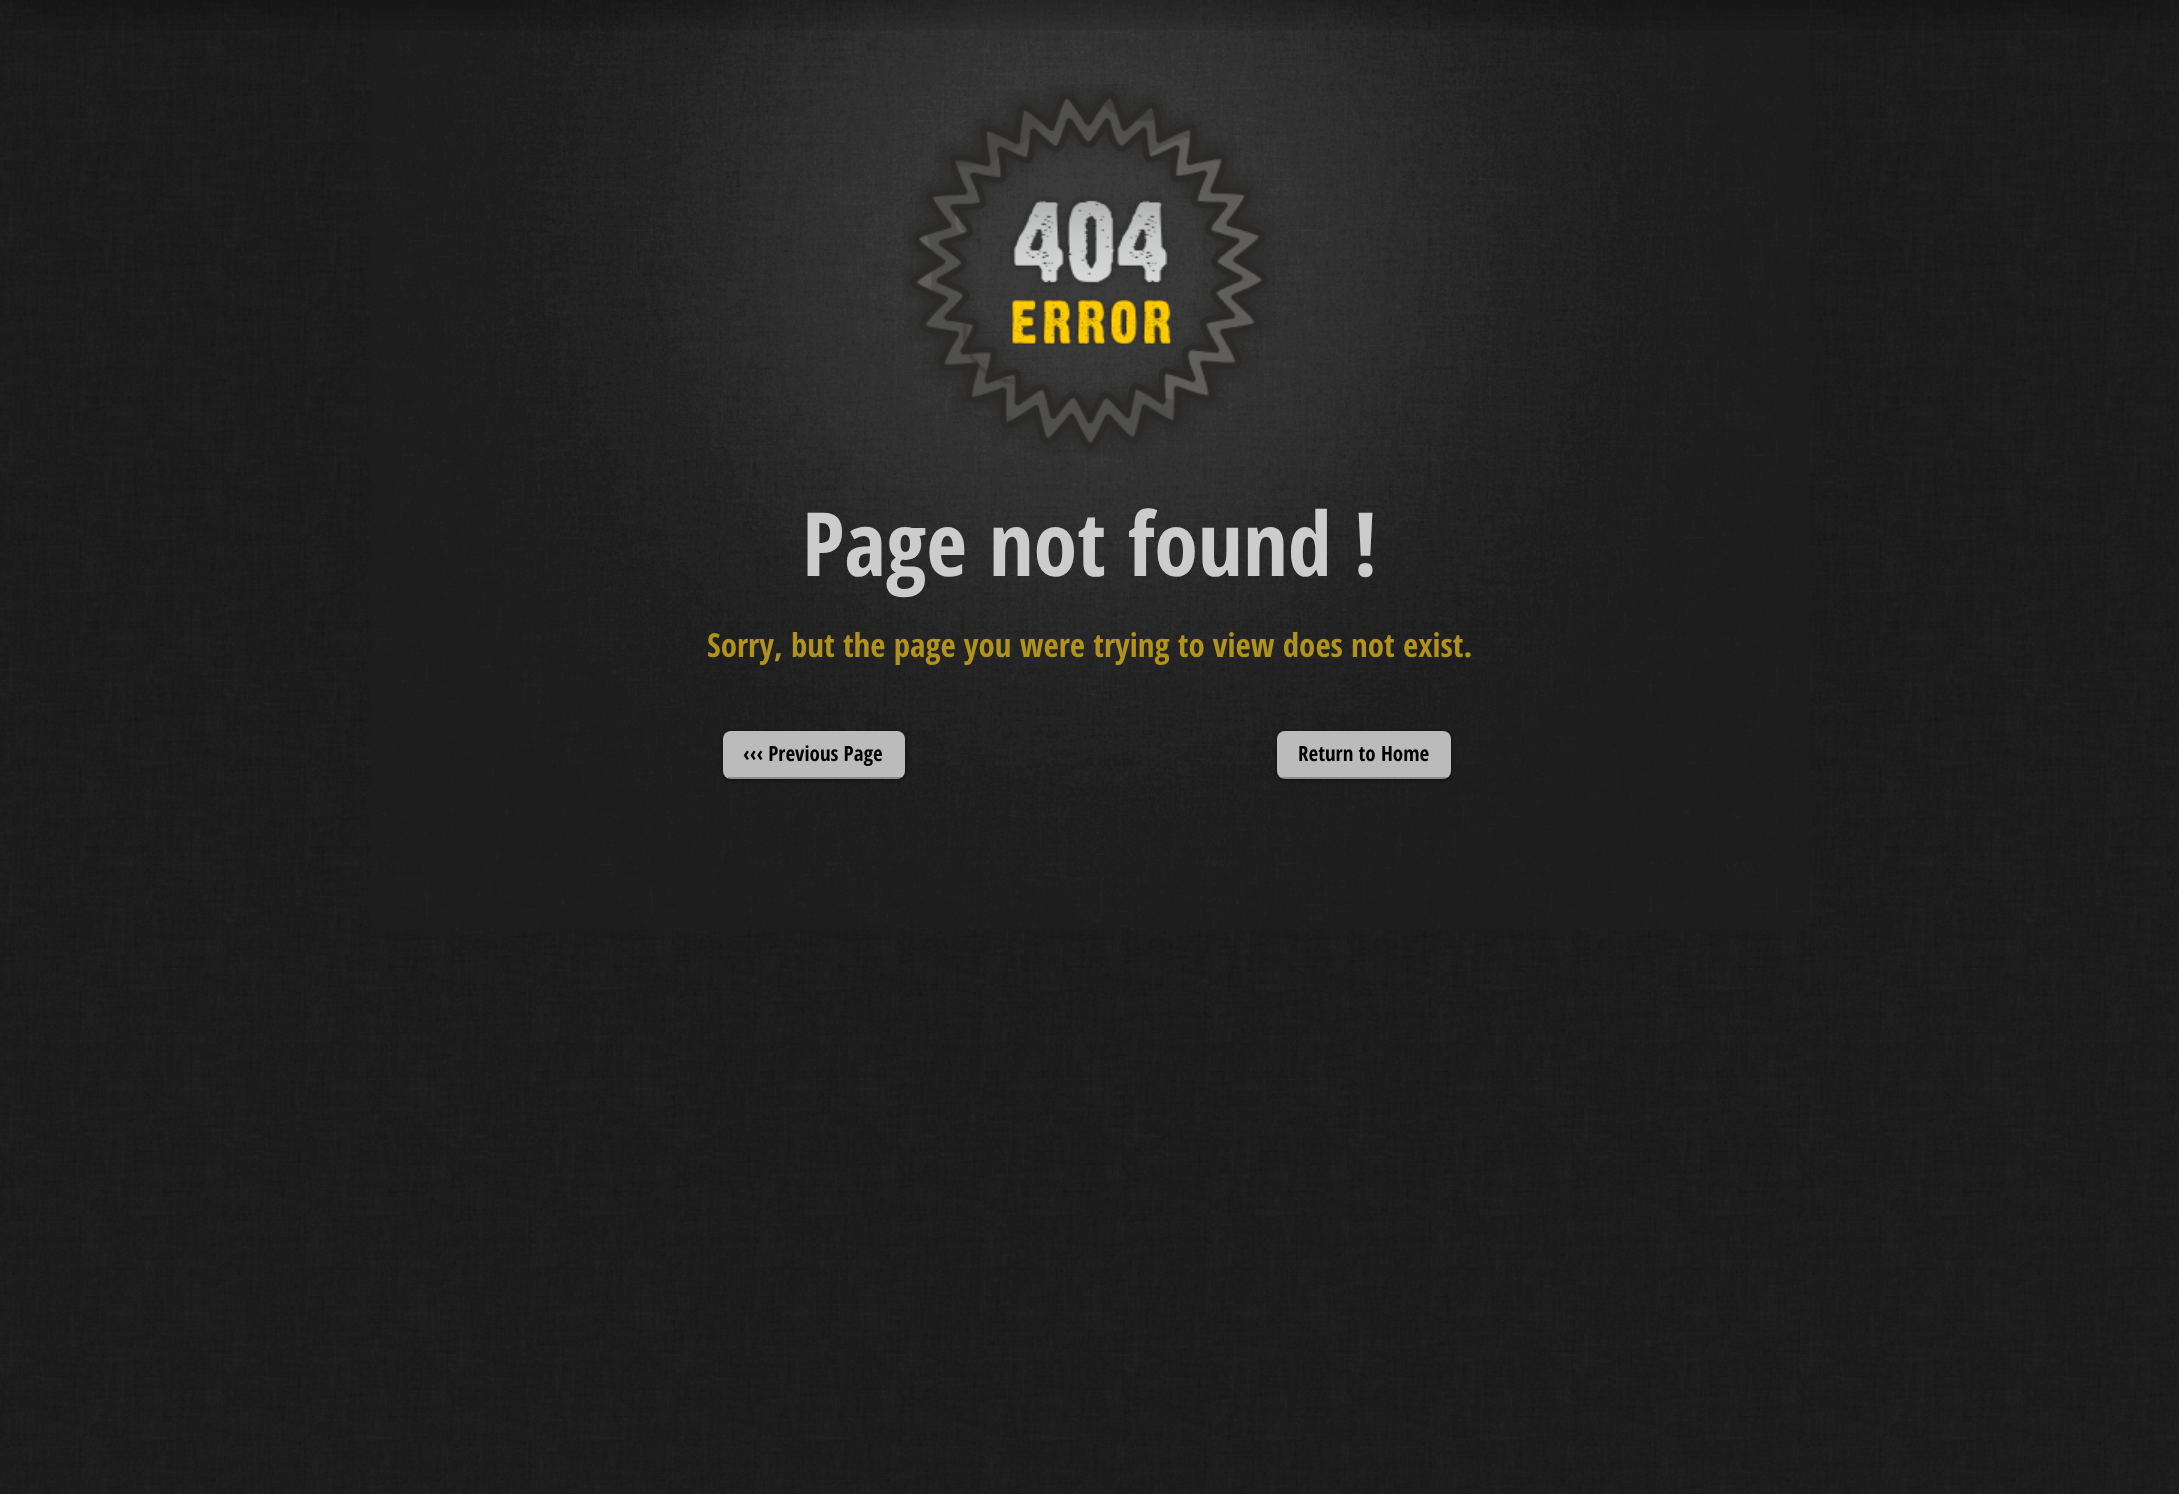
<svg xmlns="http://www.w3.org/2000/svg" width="2179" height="1494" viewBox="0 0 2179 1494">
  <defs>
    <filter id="blur1" x="-50%" y="-200%" width="200%" height="500%"><feGaussianBlur stdDeviation="22.5"/></filter>
    <filter id="blur2" x="-50%" y="-200%" width="200%" height="500%"><feGaussianBlur stdDeviation="2"/></filter>
  </defs>
  <rect width="100%" height="100%" fill="#ffffff"/>
  <image x="0" y="0" width="2179" height="1494" href="img1.png"/>
  <image x="371" y="0" width="1439" height="930" href="img2.png"/>
  <rect x="0" y="-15" width="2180" height="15" fill="#000000" fill-opacity="0.9" filter="url(#blur1)"/>
  <image x="1010" y="196" width="162" height="149" href="img3.png"/>
  <image x="903" y="84" width="372" height="372" href="img4.png"/>
  <text x="802" y="576" font-family="Open Sans Condensed" font-size="88.5" font-weight="bold" fill="#cccccc">Page not found !</text>
  <text x="707" y="657" font-family="Open Sans Condensed" font-size="33" font-weight="bold" fill="#b0921c">Sorry, but the page you were trying to view does not exist.</text>
  <rect x="723" y="732" width="182" height="48" rx="8" fill="#000000" fill-opacity="0.5" filter="url(#blur2)"/>
  <rect x="723" y="731" width="182" height="48" rx="8" fill="#bbbbbb"/>
  <rect x="728" y="777" width="174" height="2" fill="#000000" fill-opacity="0.25"/>
  <text x="743" y="761" font-family="Open Sans Condensed" font-size="21" font-weight="bold" fill="#000000">‹‹‹ Previous Page</text>
  <rect x="1277" y="732" width="174" height="48" rx="8" fill="#000000" fill-opacity="0.5" filter="url(#blur2)"/>
  <rect x="1277" y="731" width="174" height="48" rx="8" fill="#bbbbbb"/>
  <rect x="1281" y="777" width="167" height="2" fill="#000000" fill-opacity="0.25"/>
  <text x="1298" y="761" font-family="Open Sans Condensed" font-size="21" font-weight="bold" fill="#000000">Return to Home</text>
</svg>
